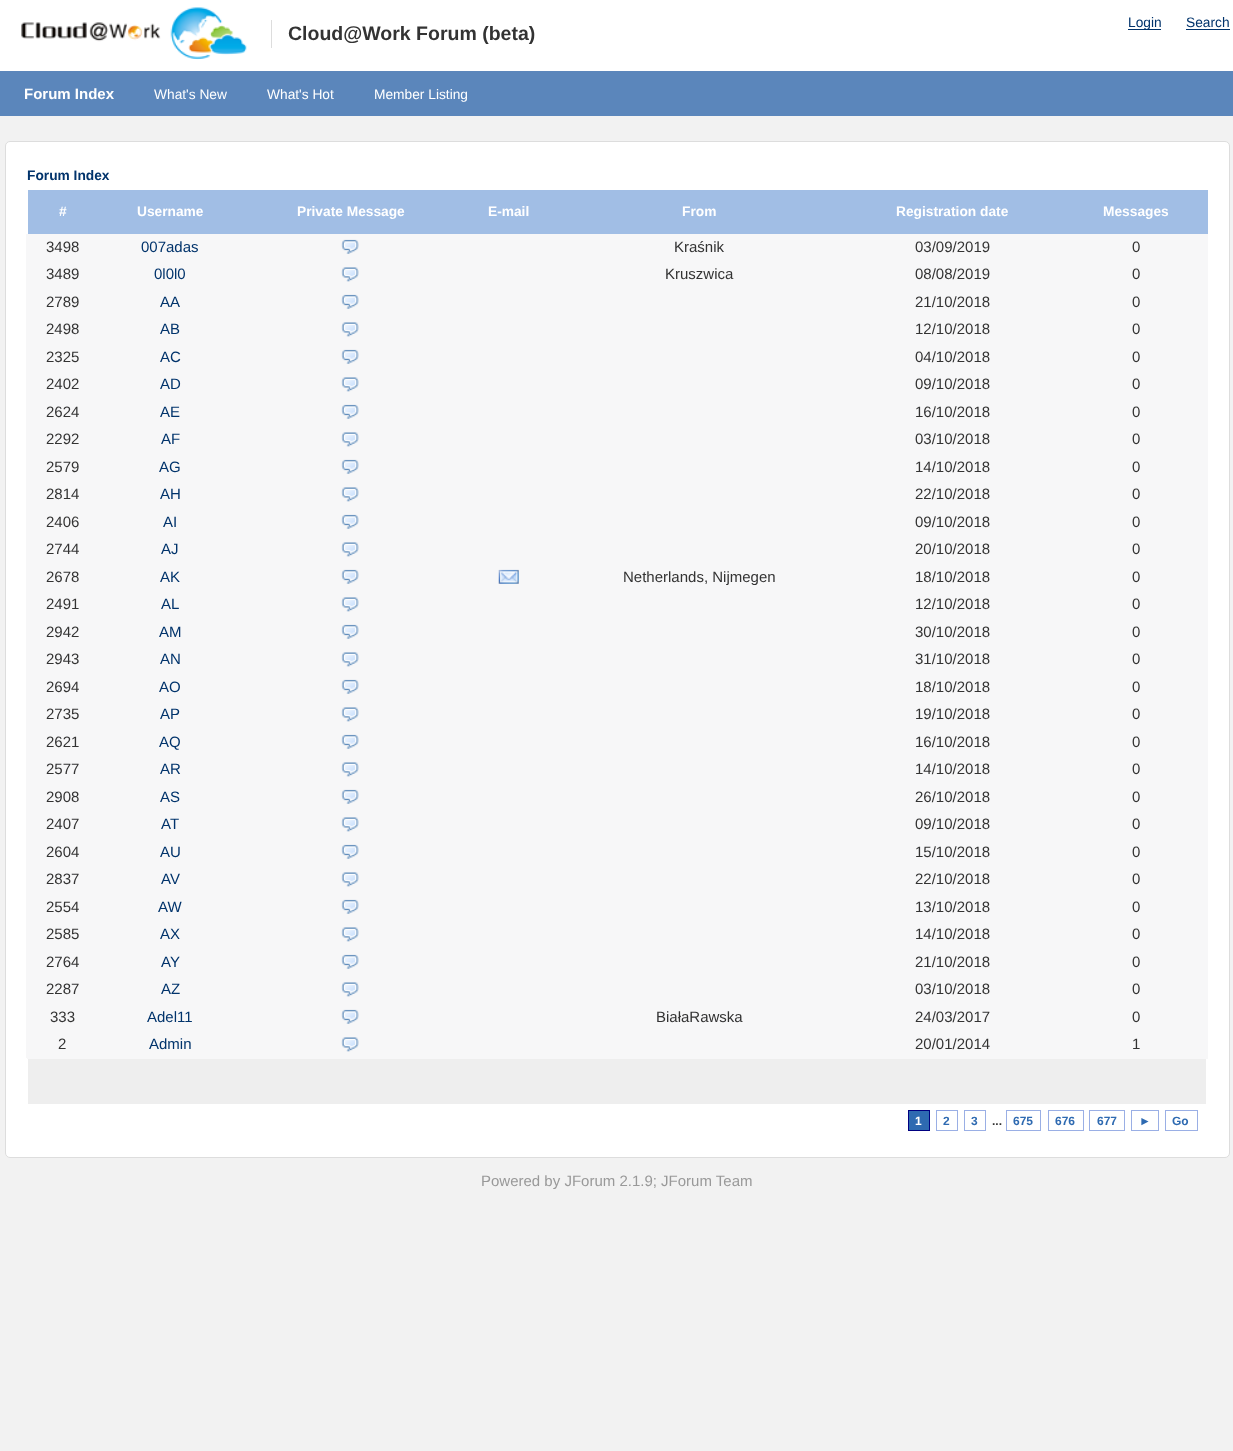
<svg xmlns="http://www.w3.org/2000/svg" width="1233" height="1451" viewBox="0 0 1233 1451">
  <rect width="100%" height="100%" fill="#f2f2f2"/>
  <rect x="0" y="0" width="1233" height="71" fill="#ffffff"/>
  <rect x="1128" y="29" width="33" height="1" fill="#01336b"/>
  <text x="1128" y="27" font-family="Liberation Sans" font-size="13.75" fill="#01336b">Login</text>
  <text x="1186" y="27" font-family="Liberation Sans" font-size="13.75" fill="#01336b">Search</text>
  <rect x="1186" y="29" width="44" height="1" fill="#01336b"/>
  <image x="21" y="7" width="226" height="53" href="img1.png"/>
  <rect x="271" y="20" width="1" height="28" fill="#dddddd"/>
  <text x="288" y="40" font-family="Liberation Sans" font-size="19.5" font-weight="bold" fill="#333333">Cloud@Work Forum (beta)</text>
  <rect x="0" y="71" width="1233" height="45" fill="#5b86bb"/>
  <text x="24" y="99" font-family="Liberation Sans" font-size="15" font-weight="bold" fill="#ffffff">Forum Index</text>
  <text x="154" y="99" font-family="Liberation Sans" font-size="13.75" fill="#ffffff">What's New</text>
  <text x="267" y="99" font-family="Liberation Sans" font-size="13.75" fill="#ffffff">What's Hot</text>
  <text x="374" y="99" font-family="Liberation Sans" font-size="13.75" fill="#ffffff">Member Listing</text>
  <rect x="5.5" y="141.5" width="1224" height="1016" rx="4.5" fill="#ffffff" stroke="#dddddd"/>
  <text x="27" y="180" font-family="Liberation Sans" font-size="13.75" font-weight="bold" fill="#01336b">Forum Index</text>
  <rect x="28" y="190" width="1180" height="44" fill="#a1bee5"/>
  <text x="59" y="216" font-family="Liberation Sans" font-size="13.75" font-weight="bold" fill="#ffffff">#</text>
  <text x="137" y="216" font-family="Liberation Sans" font-size="13.75" font-weight="bold" fill="#ffffff">Username</text>
  <text x="297" y="216" font-family="Liberation Sans" font-size="13.75" font-weight="bold" fill="#ffffff">Private Message</text>
  <text x="488" y="216" font-family="Liberation Sans" font-size="13.75" font-weight="bold" fill="#ffffff">E-mail</text>
  <text x="682" y="216" font-family="Liberation Sans" font-size="13.75" font-weight="bold" fill="#ffffff">From</text>
  <text x="896" y="216" font-family="Liberation Sans" font-size="13.75" font-weight="bold" fill="#ffffff">Registration date</text>
  <text x="1103" y="216" font-family="Liberation Sans" font-size="13.75" font-weight="bold" fill="#ffffff">Messages</text>
  <rect x="26" y="234" width="1182" height="27" fill="#f7f7f8"/>
  <text x="46" y="252" font-family="Liberation Sans" font-size="15" fill="#333333">3498</text>
  <text x="141" y="252" font-family="Liberation Sans" font-size="15" fill="#01336b">007adas</text>
  <image x="341" y="239" width="18" height="15" href="img2.png"/>
  <text x="674" y="252" font-family="Liberation Sans" font-size="15" fill="#333333">Kraśnik</text>
  <text x="915" y="252" font-family="Liberation Sans" font-size="15" fill="#333333">03/09/2019</text>
  <text x="1132" y="252" font-family="Liberation Sans" font-size="15" fill="#333333">0</text>
  <rect x="26" y="261" width="1182" height="28" fill="#f7f7f8"/>
  <text x="46" y="279" font-family="Liberation Sans" font-size="15" fill="#333333">3489</text>
  <text x="154" y="279" font-family="Liberation Sans" font-size="15" fill="#01336b">0l0l0</text>
  <image x="341" y="267" width="18" height="15" href="img3.png"/>
  <text x="665" y="279" font-family="Liberation Sans" font-size="15" fill="#333333">Kruszwica</text>
  <text x="915" y="279" font-family="Liberation Sans" font-size="15" fill="#333333">08/08/2019</text>
  <text x="1132" y="279" font-family="Liberation Sans" font-size="15" fill="#333333">0</text>
  <rect x="26" y="289" width="1182" height="27" fill="#f7f7f8"/>
  <text x="46" y="307" font-family="Liberation Sans" font-size="15" fill="#333333">2789</text>
  <text x="160" y="307" font-family="Liberation Sans" font-size="15" fill="#01336b">AA</text>
  <image x="341" y="294" width="18" height="15" href="img4.png"/>
  <text x="915" y="307" font-family="Liberation Sans" font-size="15" fill="#333333">21/10/2018</text>
  <text x="1132" y="307" font-family="Liberation Sans" font-size="15" fill="#333333">0</text>
  <rect x="26" y="316" width="1182" height="28" fill="#f7f7f8"/>
  <text x="46" y="334" font-family="Liberation Sans" font-size="15" fill="#333333">2498</text>
  <text x="160" y="334" font-family="Liberation Sans" font-size="15" fill="#01336b">AB</text>
  <image x="341" y="322" width="18" height="15" href="img3.png"/>
  <text x="915" y="334" font-family="Liberation Sans" font-size="15" fill="#333333">12/10/2018</text>
  <text x="1132" y="334" font-family="Liberation Sans" font-size="15" fill="#333333">0</text>
  <rect x="26" y="344" width="1182" height="27" fill="#f7f7f8"/>
  <text x="46" y="362" font-family="Liberation Sans" font-size="15" fill="#333333">2325</text>
  <text x="160" y="362" font-family="Liberation Sans" font-size="15" fill="#01336b">AC</text>
  <image x="341" y="349" width="18" height="15" href="img2.png"/>
  <text x="915" y="362" font-family="Liberation Sans" font-size="15" fill="#333333">04/10/2018</text>
  <text x="1132" y="362" font-family="Liberation Sans" font-size="15" fill="#333333">0</text>
  <rect x="26" y="371" width="1182" height="28" fill="#f7f7f8"/>
  <text x="46" y="389" font-family="Liberation Sans" font-size="15" fill="#333333">2402</text>
  <text x="160" y="389" font-family="Liberation Sans" font-size="15" fill="#01336b">AD</text>
  <image x="341" y="377" width="18" height="15" href="img3.png"/>
  <text x="915" y="389" font-family="Liberation Sans" font-size="15" fill="#333333">09/10/2018</text>
  <text x="1132" y="389" font-family="Liberation Sans" font-size="15" fill="#333333">0</text>
  <rect x="26" y="399" width="1182" height="27" fill="#f7f7f8"/>
  <text x="46" y="417" font-family="Liberation Sans" font-size="15" fill="#333333">2624</text>
  <text x="160" y="417" font-family="Liberation Sans" font-size="15" fill="#01336b">AE</text>
  <image x="341" y="404" width="18" height="15" href="img2.png"/>
  <text x="915" y="417" font-family="Liberation Sans" font-size="15" fill="#333333">16/10/2018</text>
  <text x="1132" y="417" font-family="Liberation Sans" font-size="15" fill="#333333">0</text>
  <rect x="26" y="426" width="1182" height="28" fill="#f7f7f8"/>
  <text x="46" y="444" font-family="Liberation Sans" font-size="15" fill="#333333">2292</text>
  <text x="161" y="444" font-family="Liberation Sans" font-size="15" fill="#01336b">AF</text>
  <image x="341" y="432" width="18" height="15" href="img3.png"/>
  <text x="915" y="444" font-family="Liberation Sans" font-size="15" fill="#333333">03/10/2018</text>
  <text x="1132" y="444" font-family="Liberation Sans" font-size="15" fill="#333333">0</text>
  <rect x="26" y="454" width="1182" height="27" fill="#f7f7f8"/>
  <text x="46" y="472" font-family="Liberation Sans" font-size="15" fill="#333333">2579</text>
  <text x="159" y="472" font-family="Liberation Sans" font-size="15" fill="#01336b">AG</text>
  <image x="341" y="459" width="18" height="15" href="img2.png"/>
  <text x="915" y="472" font-family="Liberation Sans" font-size="15" fill="#333333">14/10/2018</text>
  <text x="1132" y="472" font-family="Liberation Sans" font-size="15" fill="#333333">0</text>
  <rect x="26" y="481" width="1182" height="28" fill="#f7f7f8"/>
  <text x="46" y="499" font-family="Liberation Sans" font-size="15" fill="#333333">2814</text>
  <text x="160" y="499" font-family="Liberation Sans" font-size="15" fill="#01336b">AH</text>
  <image x="341" y="487" width="18" height="15" href="img3.png"/>
  <text x="915" y="499" font-family="Liberation Sans" font-size="15" fill="#333333">22/10/2018</text>
  <text x="1132" y="499" font-family="Liberation Sans" font-size="15" fill="#333333">0</text>
  <rect x="26" y="509" width="1182" height="27" fill="#f7f7f8"/>
  <text x="46" y="527" font-family="Liberation Sans" font-size="15" fill="#333333">2406</text>
  <text x="163" y="527" font-family="Liberation Sans" font-size="15" fill="#01336b">AI</text>
  <image x="341" y="514" width="18" height="15" href="img5.png"/>
  <text x="915" y="527" font-family="Liberation Sans" font-size="15" fill="#333333">09/10/2018</text>
  <text x="1132" y="527" font-family="Liberation Sans" font-size="15" fill="#333333">0</text>
  <rect x="26" y="536" width="1182" height="28" fill="#f7f7f8"/>
  <text x="46" y="554" font-family="Liberation Sans" font-size="15" fill="#333333">2744</text>
  <text x="161" y="554" font-family="Liberation Sans" font-size="15" fill="#01336b">AJ</text>
  <image x="341" y="542" width="18" height="15" href="img3.png"/>
  <text x="915" y="554" font-family="Liberation Sans" font-size="15" fill="#333333">20/10/2018</text>
  <text x="1132" y="554" font-family="Liberation Sans" font-size="15" fill="#333333">0</text>
  <rect x="26" y="564" width="1182" height="27" fill="#f7f7f8"/>
  <text x="46" y="582" font-family="Liberation Sans" font-size="15" fill="#333333">2678</text>
  <text x="160" y="582" font-family="Liberation Sans" font-size="15" fill="#01336b">AK</text>
  <image x="341" y="569" width="18" height="15" href="img2.png"/>
  <image x="498" y="569" width="21" height="15" href="img6.png"/>
  <text x="623" y="582" font-family="Liberation Sans" font-size="15" fill="#333333">Netherlands, Nijmegen</text>
  <text x="915" y="582" font-family="Liberation Sans" font-size="15" fill="#333333">18/10/2018</text>
  <text x="1132" y="582" font-family="Liberation Sans" font-size="15" fill="#333333">0</text>
  <rect x="26" y="591" width="1182" height="28" fill="#f7f7f8"/>
  <text x="46" y="609" font-family="Liberation Sans" font-size="15" fill="#333333">2491</text>
  <text x="161" y="609" font-family="Liberation Sans" font-size="15" fill="#01336b">AL</text>
  <image x="341" y="597" width="18" height="15" href="img3.png"/>
  <text x="915" y="609" font-family="Liberation Sans" font-size="15" fill="#333333">12/10/2018</text>
  <text x="1132" y="609" font-family="Liberation Sans" font-size="15" fill="#333333">0</text>
  <rect x="26" y="619" width="1182" height="27" fill="#f7f7f8"/>
  <text x="46" y="637" font-family="Liberation Sans" font-size="15" fill="#333333">2942</text>
  <text x="159" y="637" font-family="Liberation Sans" font-size="15" fill="#01336b">AM</text>
  <image x="341" y="624" width="18" height="15" href="img2.png"/>
  <text x="915" y="637" font-family="Liberation Sans" font-size="15" fill="#333333">30/10/2018</text>
  <text x="1132" y="637" font-family="Liberation Sans" font-size="15" fill="#333333">0</text>
  <rect x="26" y="646" width="1182" height="28" fill="#f7f7f8"/>
  <text x="46" y="664" font-family="Liberation Sans" font-size="15" fill="#333333">2943</text>
  <text x="160" y="664" font-family="Liberation Sans" font-size="15" fill="#01336b">AN</text>
  <image x="341" y="652" width="18" height="15" href="img3.png"/>
  <text x="915" y="664" font-family="Liberation Sans" font-size="15" fill="#333333">31/10/2018</text>
  <text x="1132" y="664" font-family="Liberation Sans" font-size="15" fill="#333333">0</text>
  <rect x="26" y="674" width="1182" height="27" fill="#f7f7f8"/>
  <text x="46" y="692" font-family="Liberation Sans" font-size="15" fill="#333333">2694</text>
  <text x="159" y="692" font-family="Liberation Sans" font-size="15" fill="#01336b">AO</text>
  <image x="341" y="679" width="18" height="15" href="img2.png"/>
  <text x="915" y="692" font-family="Liberation Sans" font-size="15" fill="#333333">18/10/2018</text>
  <text x="1132" y="692" font-family="Liberation Sans" font-size="15" fill="#333333">0</text>
  <rect x="26" y="701" width="1182" height="28" fill="#f7f7f8"/>
  <text x="46" y="719" font-family="Liberation Sans" font-size="15" fill="#333333">2735</text>
  <text x="160" y="719" font-family="Liberation Sans" font-size="15" fill="#01336b">AP</text>
  <image x="341" y="707" width="18" height="15" href="img3.png"/>
  <text x="915" y="719" font-family="Liberation Sans" font-size="15" fill="#333333">19/10/2018</text>
  <text x="1132" y="719" font-family="Liberation Sans" font-size="15" fill="#333333">0</text>
  <rect x="26" y="729" width="1182" height="27" fill="#f7f7f8"/>
  <text x="46" y="747" font-family="Liberation Sans" font-size="15" fill="#333333">2621</text>
  <text x="159" y="747" font-family="Liberation Sans" font-size="15" fill="#01336b">AQ</text>
  <image x="341" y="734" width="18" height="15" href="img2.png"/>
  <text x="915" y="747" font-family="Liberation Sans" font-size="15" fill="#333333">16/10/2018</text>
  <text x="1132" y="747" font-family="Liberation Sans" font-size="15" fill="#333333">0</text>
  <rect x="26" y="756" width="1182" height="28" fill="#f7f7f8"/>
  <text x="46" y="774" font-family="Liberation Sans" font-size="15" fill="#333333">2577</text>
  <text x="160" y="774" font-family="Liberation Sans" font-size="15" fill="#01336b">AR</text>
  <image x="341" y="762" width="18" height="15" href="img3.png"/>
  <text x="915" y="774" font-family="Liberation Sans" font-size="15" fill="#333333">14/10/2018</text>
  <text x="1132" y="774" font-family="Liberation Sans" font-size="15" fill="#333333">0</text>
  <rect x="26" y="784" width="1182" height="27" fill="#f7f7f8"/>
  <text x="46" y="802" font-family="Liberation Sans" font-size="15" fill="#333333">2908</text>
  <text x="160" y="802" font-family="Liberation Sans" font-size="15" fill="#01336b">AS</text>
  <image x="341" y="789" width="18" height="15" href="img2.png"/>
  <text x="915" y="802" font-family="Liberation Sans" font-size="15" fill="#333333">26/10/2018</text>
  <text x="1132" y="802" font-family="Liberation Sans" font-size="15" fill="#333333">0</text>
  <rect x="26" y="811" width="1182" height="28" fill="#f7f7f8"/>
  <text x="46" y="829" font-family="Liberation Sans" font-size="15" fill="#333333">2407</text>
  <text x="161" y="829" font-family="Liberation Sans" font-size="15" fill="#01336b">AT</text>
  <image x="341" y="817" width="18" height="15" href="img3.png"/>
  <text x="915" y="829" font-family="Liberation Sans" font-size="15" fill="#333333">09/10/2018</text>
  <text x="1132" y="829" font-family="Liberation Sans" font-size="15" fill="#333333">0</text>
  <rect x="26" y="839" width="1182" height="27" fill="#f7f7f8"/>
  <text x="46" y="857" font-family="Liberation Sans" font-size="15" fill="#333333">2604</text>
  <text x="160" y="857" font-family="Liberation Sans" font-size="15" fill="#01336b">AU</text>
  <image x="341" y="844" width="18" height="15" href="img2.png"/>
  <text x="915" y="857" font-family="Liberation Sans" font-size="15" fill="#333333">15/10/2018</text>
  <text x="1132" y="857" font-family="Liberation Sans" font-size="15" fill="#333333">0</text>
  <rect x="26" y="866" width="1182" height="28" fill="#f7f7f8"/>
  <text x="46" y="884" font-family="Liberation Sans" font-size="15" fill="#333333">2837</text>
  <text x="161" y="884" font-family="Liberation Sans" font-size="15" fill="#01336b">AV</text>
  <image x="341" y="872" width="18" height="15" href="img3.png"/>
  <text x="915" y="884" font-family="Liberation Sans" font-size="15" fill="#333333">22/10/2018</text>
  <text x="1132" y="884" font-family="Liberation Sans" font-size="15" fill="#333333">0</text>
  <rect x="26" y="894" width="1182" height="27" fill="#f7f7f8"/>
  <text x="46" y="912" font-family="Liberation Sans" font-size="15" fill="#333333">2554</text>
  <text x="158" y="912" font-family="Liberation Sans" font-size="15" fill="#01336b">AW</text>
  <image x="341" y="899" width="18" height="15" href="img2.png"/>
  <text x="915" y="912" font-family="Liberation Sans" font-size="15" fill="#333333">13/10/2018</text>
  <text x="1132" y="912" font-family="Liberation Sans" font-size="15" fill="#333333">0</text>
  <rect x="26" y="921" width="1182" height="28" fill="#f7f7f8"/>
  <text x="46" y="939" font-family="Liberation Sans" font-size="15" fill="#333333">2585</text>
  <text x="160" y="939" font-family="Liberation Sans" font-size="15" fill="#01336b">AX</text>
  <image x="341" y="927" width="18" height="15" href="img3.png"/>
  <text x="915" y="939" font-family="Liberation Sans" font-size="15" fill="#333333">14/10/2018</text>
  <text x="1132" y="939" font-family="Liberation Sans" font-size="15" fill="#333333">0</text>
  <rect x="26" y="949" width="1182" height="27" fill="#f7f7f8"/>
  <text x="46" y="967" font-family="Liberation Sans" font-size="15" fill="#333333">2764</text>
  <text x="161" y="967" font-family="Liberation Sans" font-size="15" fill="#01336b">AY</text>
  <image x="341" y="954" width="18" height="15" href="img2.png"/>
  <text x="915" y="967" font-family="Liberation Sans" font-size="15" fill="#333333">21/10/2018</text>
  <text x="1132" y="967" font-family="Liberation Sans" font-size="15" fill="#333333">0</text>
  <rect x="26" y="976" width="1182" height="28" fill="#f7f7f8"/>
  <text x="46" y="994" font-family="Liberation Sans" font-size="15" fill="#333333">2287</text>
  <text x="161" y="994" font-family="Liberation Sans" font-size="15" fill="#01336b">AZ</text>
  <image x="341" y="982" width="18" height="15" href="img3.png"/>
  <text x="915" y="994" font-family="Liberation Sans" font-size="15" fill="#333333">03/10/2018</text>
  <text x="1132" y="994" font-family="Liberation Sans" font-size="15" fill="#333333">0</text>
  <rect x="26" y="1004" width="1182" height="27" fill="#f7f7f8"/>
  <text x="50" y="1022" font-family="Liberation Sans" font-size="15" fill="#333333">333</text>
  <text x="147" y="1022" font-family="Liberation Sans" font-size="15" fill="#01336b">Adel11</text>
  <image x="341" y="1009" width="18" height="15" href="img2.png"/>
  <text x="656" y="1022" font-family="Liberation Sans" font-size="15" fill="#333333">BiałaRawska</text>
  <text x="915" y="1022" font-family="Liberation Sans" font-size="15" fill="#333333">24/03/2017</text>
  <text x="1132" y="1022" font-family="Liberation Sans" font-size="15" fill="#333333">0</text>
  <rect x="26" y="1031" width="1182" height="28" fill="#f7f7f8"/>
  <text x="58" y="1049" font-family="Liberation Sans" font-size="15" fill="#333333">2</text>
  <text x="149" y="1049" font-family="Liberation Sans" font-size="15" fill="#01336b">Admin</text>
  <image x="341" y="1037" width="18" height="15" href="img3.png"/>
  <text x="915" y="1049" font-family="Liberation Sans" font-size="15" fill="#333333">20/01/2014</text>
  <text x="1132" y="1049" font-family="Liberation Sans" font-size="15" fill="#333333">1</text>
  <rect x="28" y="1059" width="1178" height="45" fill="#eeeeee"/>
  <rect x="26" y="1058" width="1" height="1" fill="#ffffff"/>
  <rect x="908.5" y="1110.5" width="21" height="20" fill="#2e6ab1" stroke="#000080"/>
  <text x="915" y="1125" font-family="Liberation Sans" font-size="12" font-weight="bold" fill="#ffffff">1</text>
  <rect x="936.5" y="1110.5" width="21" height="20" fill="none" stroke="#9aafe5"/>
  <text x="943" y="1125" font-family="Liberation Sans" font-size="12" font-weight="bold" fill="#2e6ab1">2</text>
  <rect x="964.5" y="1110.5" width="21" height="20" fill="none" stroke="#9aafe5"/>
  <text x="971" y="1125" font-family="Liberation Sans" font-size="12" font-weight="bold" fill="#2e6ab1">3</text>
  <text x="992" y="1125" font-family="Liberation Sans" font-size="12" font-weight="bold" fill="#333333">...</text>
  <rect x="1006.5" y="1110.5" width="34" height="20" fill="none" stroke="#9aafe5"/>
  <text x="1013" y="1125" font-family="Liberation Sans" font-size="12" font-weight="bold" fill="#2e6ab1">675</text>
  <rect x="1048.5" y="1110.5" width="35" height="20" fill="none" stroke="#9aafe5"/>
  <text x="1055" y="1125" font-family="Liberation Sans" font-size="12" font-weight="bold" fill="#2e6ab1">676</text>
  <rect x="1089.5" y="1110.5" width="35" height="20" fill="none" stroke="#9aafe5"/>
  <text x="1097" y="1125" font-family="Liberation Sans" font-size="12" font-weight="bold" fill="#2e6ab1">677</text>
  <rect x="1131.5" y="1110.5" width="27" height="20" fill="none" stroke="#9aafe5"/>
  <text x="1139" y="1125" font-family="Liberation Sans" font-size="12" font-weight="bold" fill="#2e6ab1">►</text>
  <rect x="1165.5" y="1110.5" width="32" height="20" fill="none" stroke="#9aafe5"/>
  <text x="1172" y="1125" font-family="Liberation Sans" font-size="12" font-weight="bold" fill="#2e6ab1">Go</text>
  <text x="481" y="1186" font-family="Liberation Sans" font-size="15" fill="#999999">Powered by JForum 2.1.9; JForum Team</text>
</svg>
